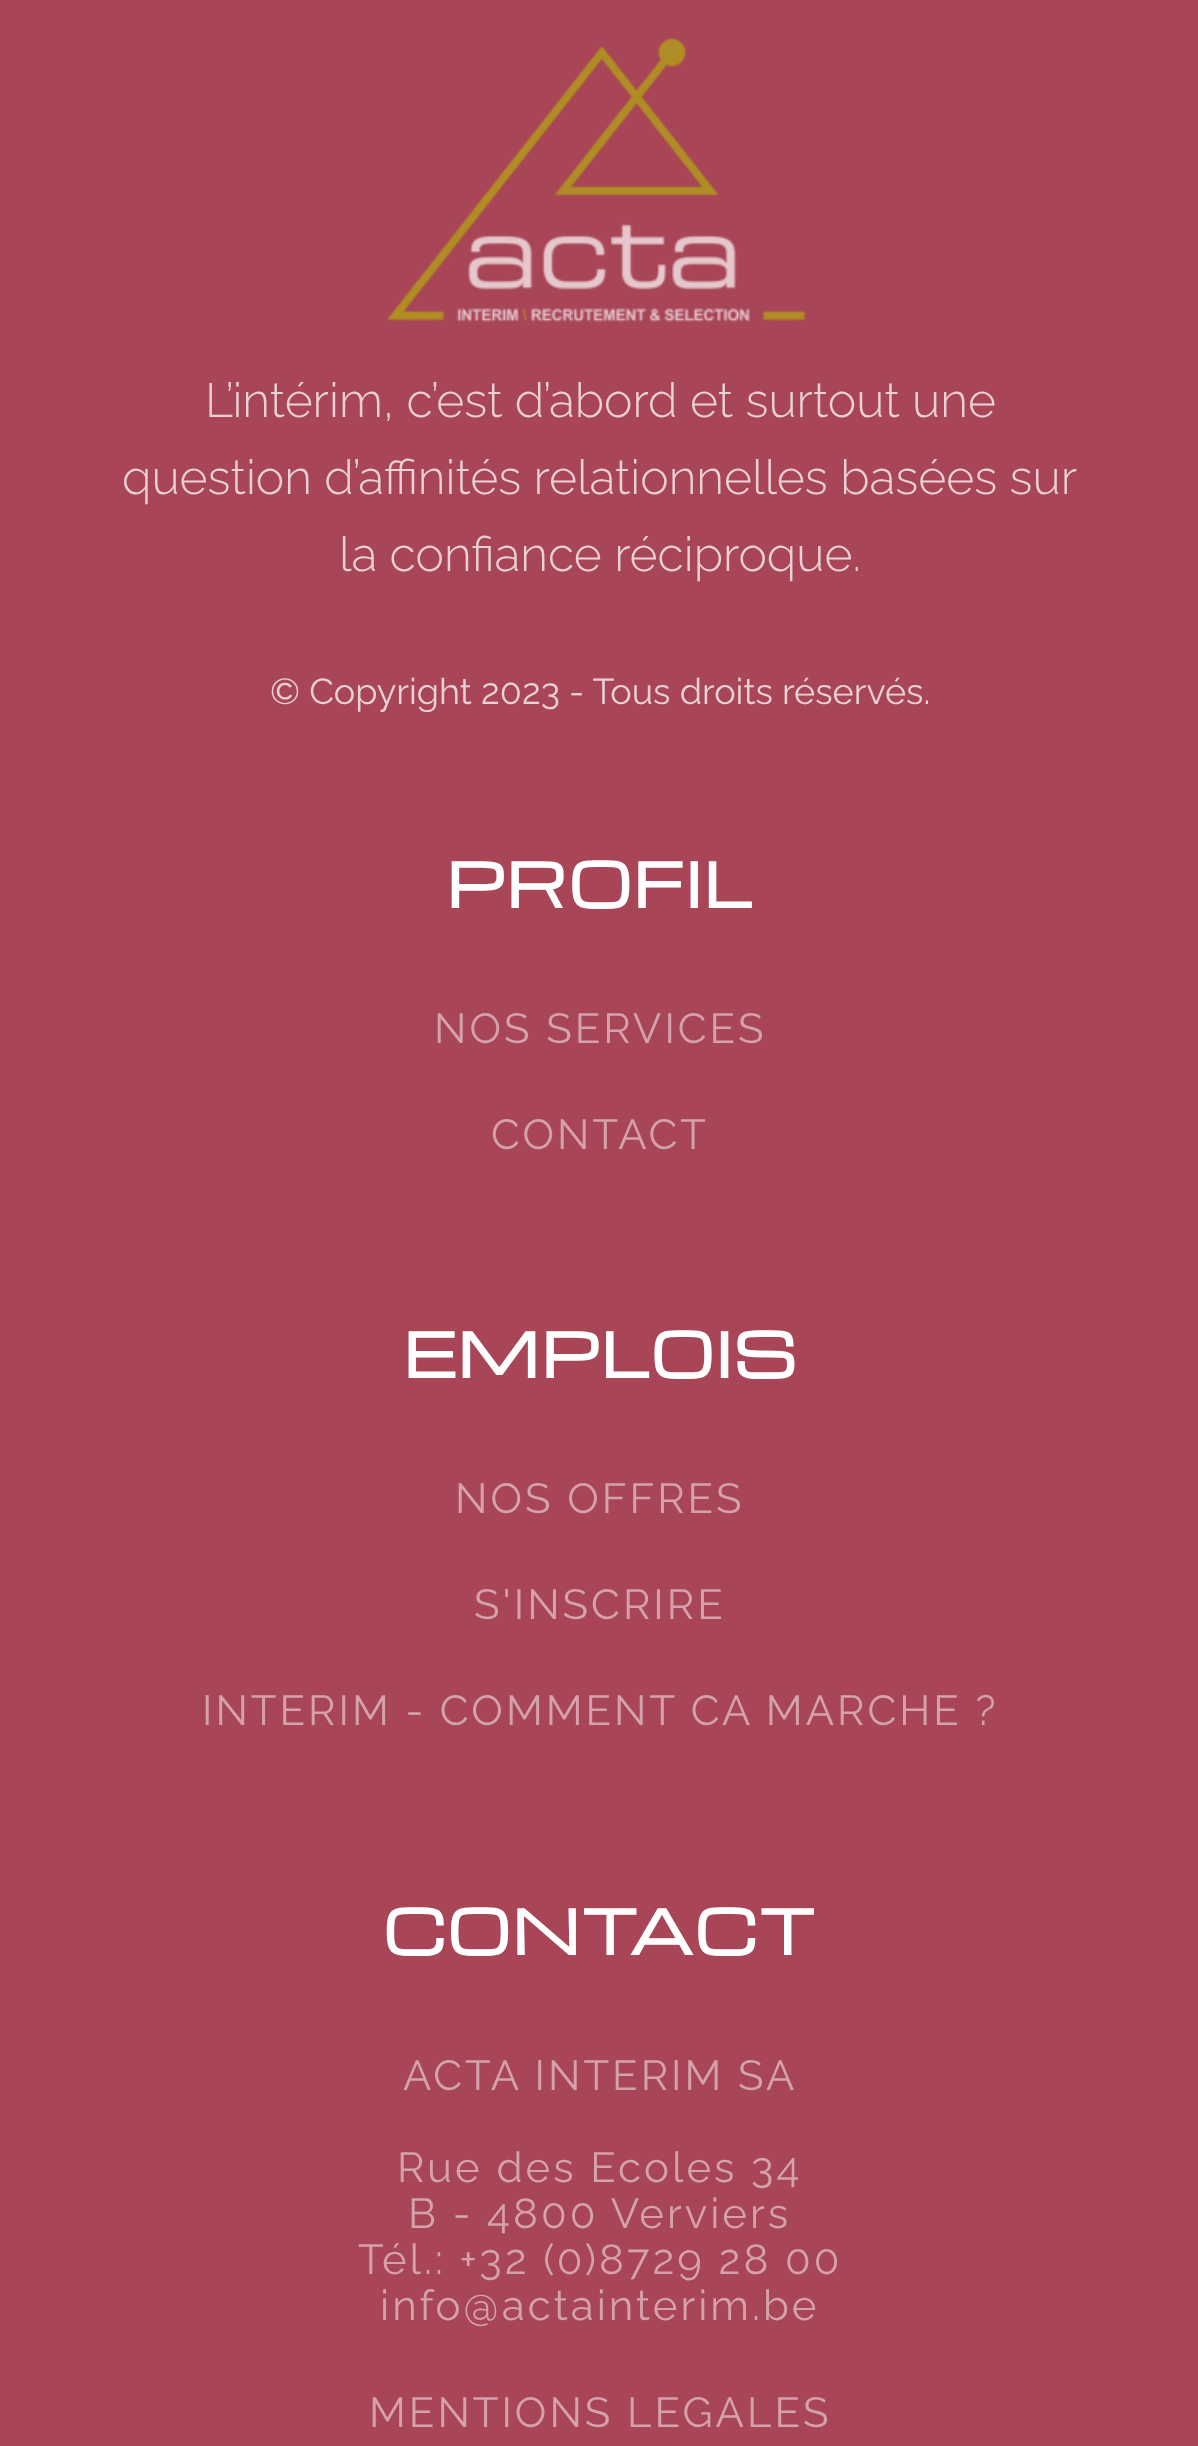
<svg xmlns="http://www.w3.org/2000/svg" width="1198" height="2446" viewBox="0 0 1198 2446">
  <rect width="100%" height="100%" fill="#a84557"/>
  <image x="386" y="38" width="420" height="285" href="img1.png"/>
  <text x="205" y="417" font-family="Raleway" font-size="48" font-weight="300" fill="#e9d1d5">L’intérim, c’est d’abord et surtout une</text>
  <text x="122" y="494" font-family="Raleway" font-size="48" font-weight="300" fill="#e9d1d5">question d’affinités relationnelles basées sur</text>
  <text x="339" y="571" font-family="Raleway" font-size="48" font-weight="300" fill="#e9d1d5">la confiance réciproque.</text>
  <text x="270" y="704" font-family="Raleway" font-size="36" fill="#e9d1d5">© Copyright 2023 - Tous droits réservés.</text>
  <text x="446" y="908" font-family="Michroma" font-size="60" font-weight="bold" letter-spacing="1.5" fill="#ffffff">PROFIL</text>
  <text x="434" y="1043" font-family="Raleway" font-size="42" letter-spacing="3" fill="#d4a2ab">NOS SERVICES</text>
  <text x="491" y="1149" font-family="Raleway" font-size="42" letter-spacing="3" fill="#d4a2ab">CONTACT</text>
  <text x="403" y="1378" font-family="Michroma" font-size="60" font-weight="bold" letter-spacing="1.5" fill="#ffffff">EMPLOIS</text>
  <text x="455" y="1513" font-family="Raleway" font-size="42" letter-spacing="3" fill="#d4a2ab">NOS OFFRES</text>
  <text x="474" y="1619" font-family="Raleway" font-size="42" letter-spacing="3" fill="#d4a2ab">S'INSCRIRE</text>
  <text x="202" y="1725" font-family="Raleway" font-size="42" letter-spacing="3" fill="#d4a2ab">INTERIM - COMMENT CA MARCHE ?</text>
  <text x="383" y="1955" font-family="Michroma" font-size="60" font-weight="bold" letter-spacing="1.5" fill="#ffffff">CONTACT</text>
  <text x="403" y="2090" font-family="Raleway" font-size="42" letter-spacing="3" fill="#d4a2ab">ACTA INTERIM SA</text>
  <text x="397" y="2182" font-family="Raleway" font-size="42" letter-spacing="3" fill="#d4a2ab">Rue des Ecoles 34</text>
  <text x="408" y="2228" font-family="Raleway" font-size="42" letter-spacing="3" fill="#d4a2ab">B - 4800 Verviers</text>
  <text x="358" y="2274" font-family="Raleway" font-size="42" letter-spacing="3" fill="#d4a2ab">Tél.: +32 (0)8729 28 00</text>
  <text x="380" y="2320" font-family="Raleway" font-size="42" letter-spacing="3" fill="#d4a2ab">info@actainterim.be</text>
  <text x="369" y="2427" font-family="Raleway" font-size="42" letter-spacing="3" fill="#d4a2ab">MENTIONS LEGALES</text>
</svg>
